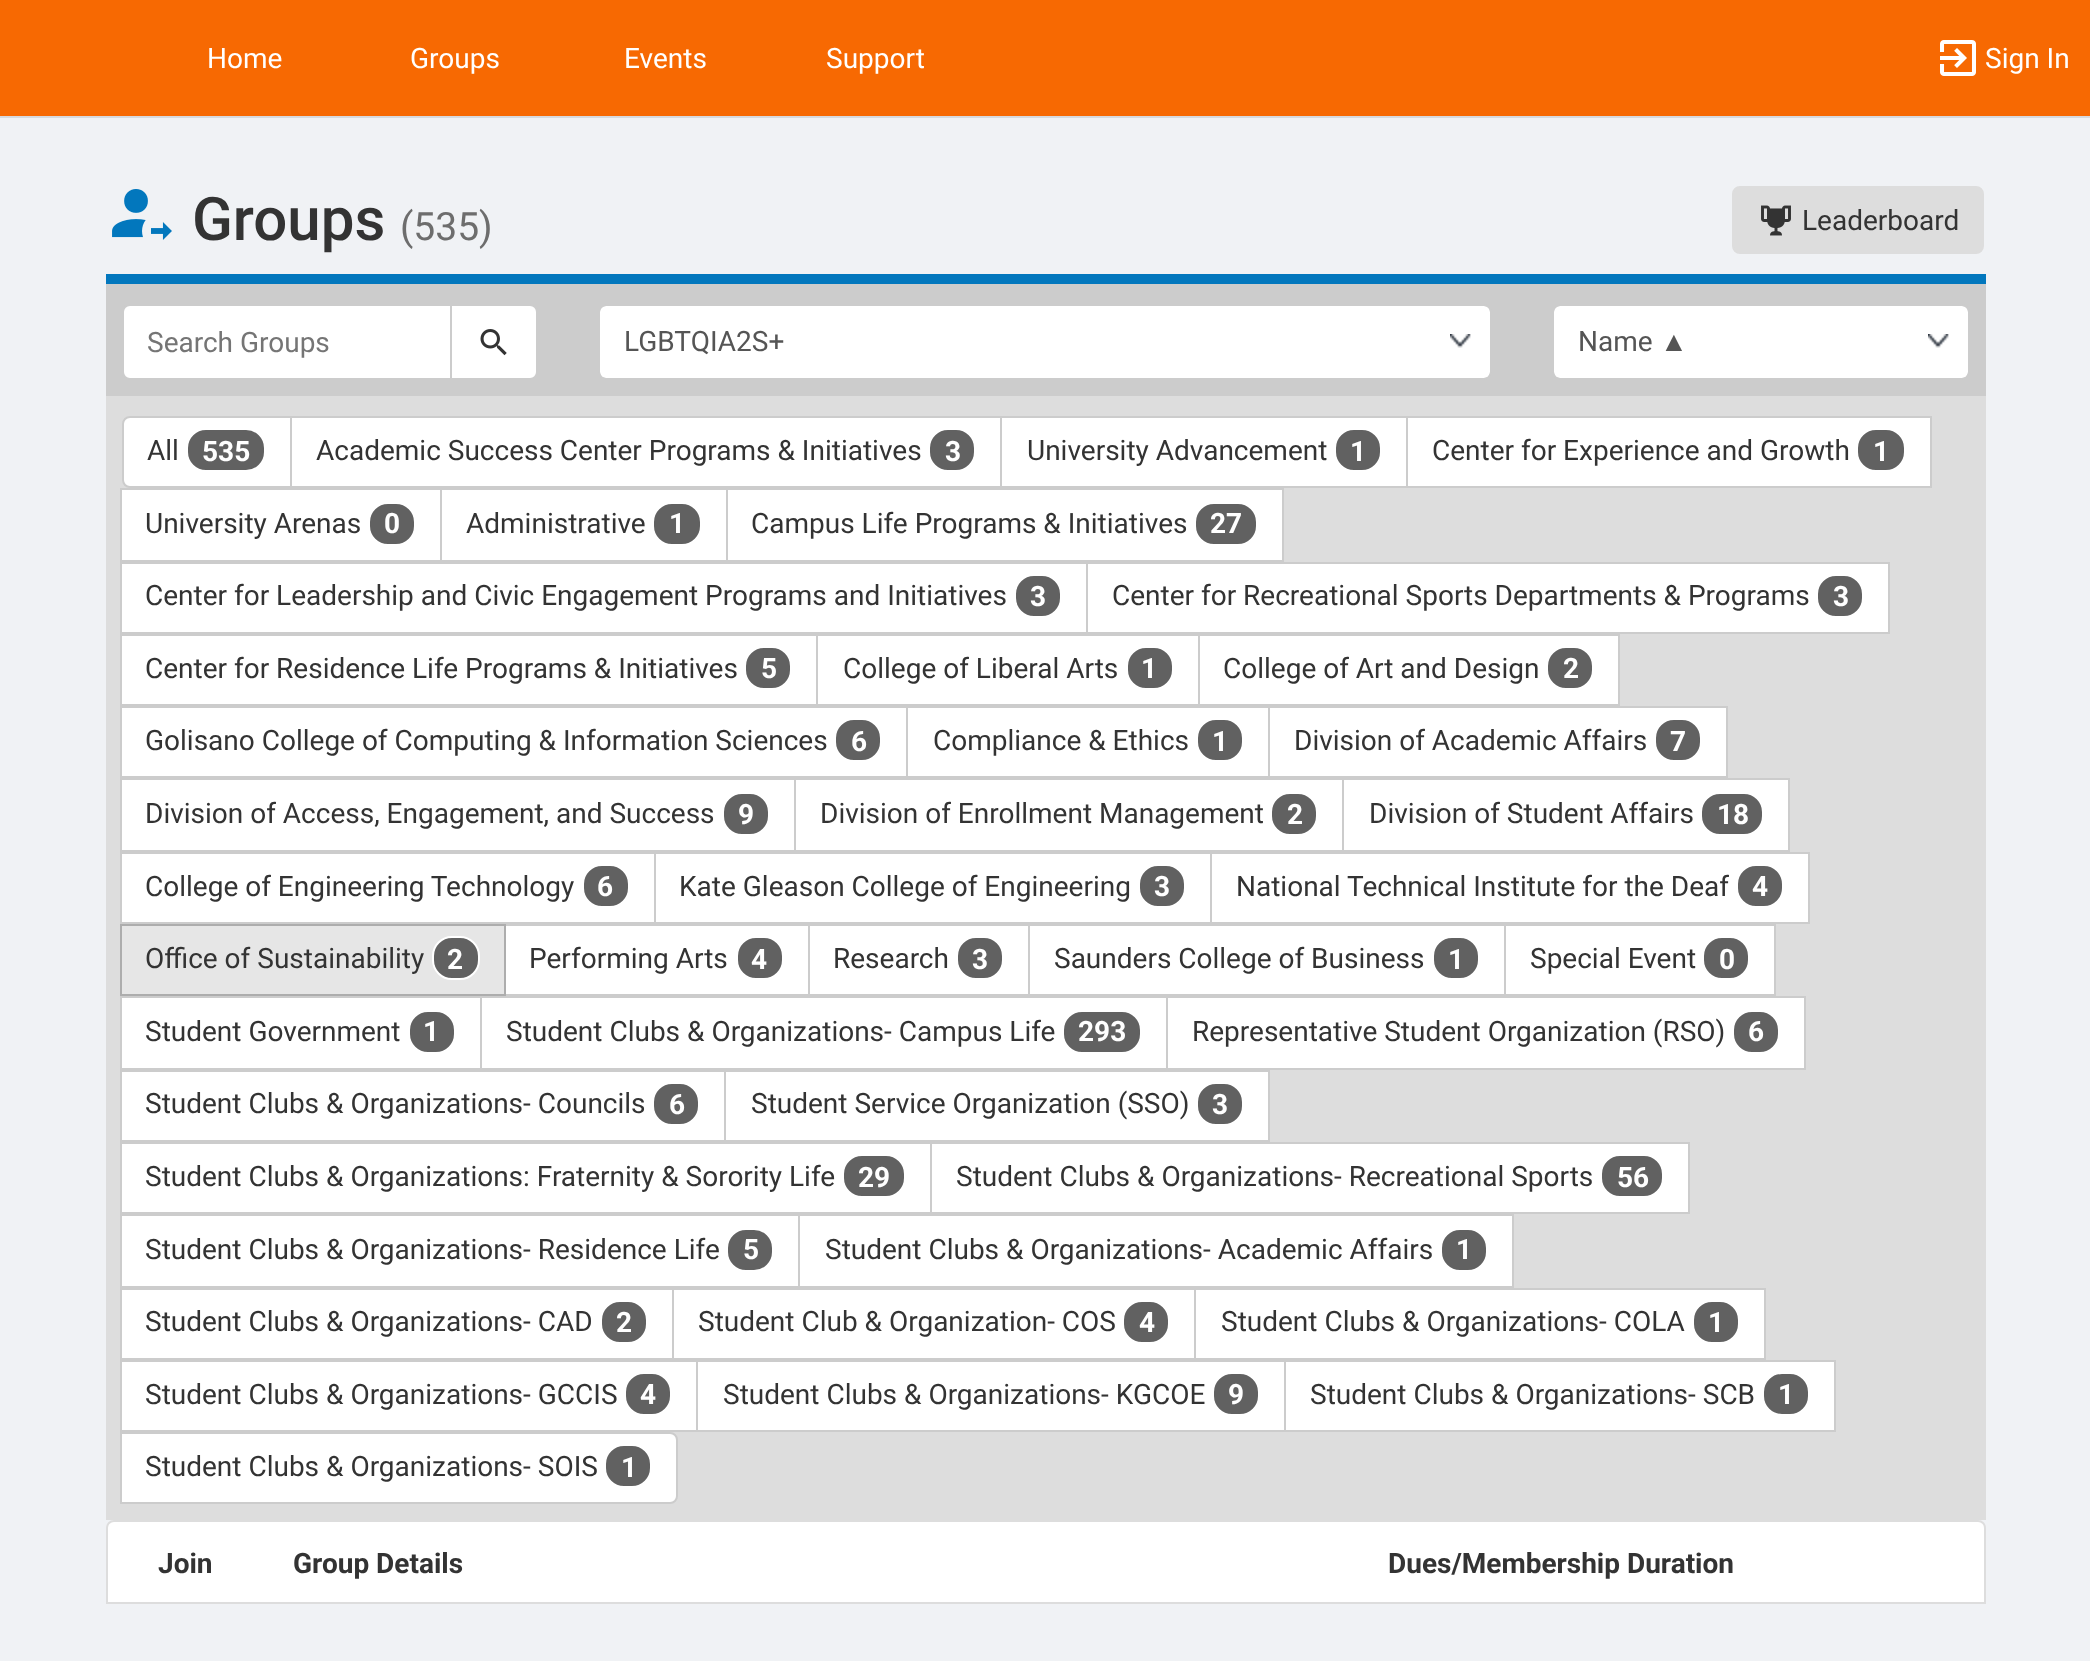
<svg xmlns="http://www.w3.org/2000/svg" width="2090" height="1661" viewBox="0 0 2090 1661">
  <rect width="100%" height="100%" fill="#f0f2f5"/>
  <rect x="0" y="0" width="2090" height="116" fill="#f76902"/>
  <rect x="0" y="116" width="2090" height="2" fill="#d8dadd"/>
  <text x="207" y="68" font-family="Roboto" font-size="28" fill="#ffffff">Home</text>
  <text x="410" y="68" font-family="Roboto" font-size="28" fill="#ffffff">Groups</text>
  <text x="624" y="68" font-family="Roboto" font-size="28" fill="#ffffff">Events</text>
  <text x="826" y="68" font-family="Roboto" font-size="28" fill="#ffffff">Support</text>
  <image x="1940" y="40" width="36" height="36" href="img1.png"/>
  <text x="1985" y="68" font-family="Roboto" font-size="28" fill="#ffffff">Sign In</text>
  <image x="112" y="189" width="60" height="51" href="img2.png"/>
  <text x="192" y="240" font-family="Roboto" font-size="60" font-weight="500" fill="#333333">Groups</text>
  <text x="400" y="240" font-family="Roboto" font-size="39" fill="#6d6d6d">(535)</text>
  <rect x="1733" y="187" width="250" height="66" rx="7" fill="#dddddd" stroke="#dddddd" stroke-width="2"/>
  <image x="1761" y="205" width="30" height="31" href="img3.png"/>
  <text x="1802" y="230" font-family="Roboto" font-size="28" fill="#333333">Leaderboard</text>
  <rect x="106" y="284" width="1880" height="112" fill="#cccccc"/>
  <rect x="106" y="274" width="1880" height="10" fill="#0277bd"/>
  <path d="M130 305H451V379H130C126 379 123 376 123 372V312C123 308 126 305 130 305Z" fill="#ffffff" stroke="#cccccc" stroke-width="2"/>
  <text x="147" y="352" font-family="Roboto" font-size="28" fill="#757575">Search Groups</text>
  <path d="M451 305H530C534 305 537 308 537 312V372C537 376 534 379 530 379H451Z" fill="#ffffff" stroke="#cccccc" stroke-width="2"/>
  <image x="480" y="329" width="27" height="27" href="img4.png"/>
  <rect x="600" y="306" width="890" height="72" rx="6" fill="#ffffff"/>
  <image x="1450" y="334" width="21" height="14" href="img5.png"/>
  <rect x="599" y="305" width="892" height="74" rx="7" fill="none" stroke="#cccccc" stroke-width="2"/>
  <text x="624" y="351" font-family="Roboto" font-size="28" fill="#555555">LGBTQIA2S+</text>
  <rect x="1554" y="306" width="414" height="72" rx="6" fill="#ffffff"/>
  <image x="1928" y="334" width="21" height="14" href="img5.png"/>
  <rect x="1553" y="305" width="416" height="74" rx="7" fill="none" stroke="#cccccc" stroke-width="2"/>
  <text x="1578" y="351" font-family="Roboto" font-size="28" fill="#555555">Name</text>
  <text x="1660" y="351" font-family="Liberation Sans" font-size="28" fill="#555555">▲</text>
  <rect x="106" y="396" width="1880" height="1124" fill="#dddddd"/>
  <path d="M130 417H291V487H130C126 487 123 484 123 480V424C123 420 126 417 130 417Z" fill="#ffffff" stroke="#cccccc" stroke-width="2"/>
  <text x="147" y="460" font-family="Roboto" font-size="28" fill="#333333">All</text>
  <rect x="187" y="429" width="78" height="42" rx="19" fill="#616161" stroke="#ffffff" stroke-width="2"/>
  <text x="202" y="461" font-family="Roboto" font-size="28" font-weight="bold" fill="#ffffff">535</text>
  <rect x="291" y="417" width="710" height="70" fill="#ffffff" stroke="#cccccc" stroke-width="2"/>
  <text x="316" y="460" font-family="Roboto" font-size="28" fill="#333333">Academic Success Center Programs &amp; Initiatives</text>
  <rect x="929" y="429" width="46" height="42" rx="19" fill="#616161" stroke="#ffffff" stroke-width="2"/>
  <text x="945" y="461" font-family="Roboto" font-size="28" font-weight="bold" fill="#ffffff">3</text>
  <rect x="1001" y="417" width="406" height="70" fill="#ffffff" stroke="#cccccc" stroke-width="2"/>
  <text x="1027" y="460" font-family="Roboto" font-size="28" fill="#333333">University Advancement</text>
  <rect x="1335" y="429" width="46" height="42" rx="19" fill="#616161" stroke="#ffffff" stroke-width="2"/>
  <text x="1350" y="461" font-family="Roboto" font-size="28" font-weight="bold" fill="#ffffff">1</text>
  <rect x="1407" y="417" width="524" height="70" fill="#ffffff" stroke="#cccccc" stroke-width="2"/>
  <text x="1432" y="460" font-family="Roboto" font-size="28" fill="#333333">Center for Experience and Growth</text>
  <rect x="1857" y="429" width="48" height="42" rx="19" fill="#616161" stroke="#ffffff" stroke-width="2"/>
  <text x="1873" y="461" font-family="Roboto" font-size="28" font-weight="bold" fill="#ffffff">1</text>
  <rect x="121" y="489" width="320" height="72" fill="#ffffff" stroke="#cccccc" stroke-width="2"/>
  <text x="145" y="533" font-family="Roboto" font-size="28" fill="#333333">University Arenas</text>
  <rect x="369" y="503" width="46" height="42" rx="19" fill="#616161" stroke="#ffffff" stroke-width="2"/>
  <text x="384" y="533" font-family="Roboto" font-size="28" font-weight="bold" fill="#ffffff">0</text>
  <rect x="441" y="489" width="286" height="72" fill="#ffffff" stroke="#cccccc" stroke-width="2"/>
  <text x="466" y="533" font-family="Roboto" font-size="28" fill="#333333">Administrative</text>
  <rect x="653" y="503" width="48" height="42" rx="19" fill="#616161" stroke="#ffffff" stroke-width="2"/>
  <text x="669" y="533" font-family="Roboto" font-size="28" font-weight="bold" fill="#ffffff">1</text>
  <rect x="727" y="489" width="556" height="72" fill="#ffffff" stroke="#cccccc" stroke-width="2"/>
  <text x="751" y="533" font-family="Roboto" font-size="28" fill="#333333">Campus Life Programs &amp; Initiatives</text>
  <rect x="1195" y="503" width="62" height="42" rx="19" fill="#616161" stroke="#ffffff" stroke-width="2"/>
  <text x="1210" y="533" font-family="Roboto" font-size="28" font-weight="bold" fill="#ffffff">27</text>
  <rect x="121" y="563" width="966" height="70" fill="#ffffff" stroke="#cccccc" stroke-width="2"/>
  <text x="145" y="605" font-family="Roboto" font-size="28" fill="#333333">Center for Leadership and Civic Engagement Programs and Initiatives</text>
  <rect x="1015" y="575" width="46" height="42" rx="19" fill="#616161" stroke="#ffffff" stroke-width="2"/>
  <text x="1030" y="606" font-family="Roboto" font-size="28" font-weight="bold" fill="#ffffff">3</text>
  <rect x="1087" y="563" width="802" height="70" fill="#ffffff" stroke="#cccccc" stroke-width="2"/>
  <text x="1112" y="605" font-family="Roboto" font-size="28" fill="#333333">Center for Recreational Sports Departments &amp; Programs</text>
  <rect x="1817" y="575" width="46" height="42" rx="19" fill="#616161" stroke="#ffffff" stroke-width="2"/>
  <text x="1833" y="606" font-family="Roboto" font-size="28" font-weight="bold" fill="#ffffff">3</text>
  <rect x="121" y="635" width="696" height="70" fill="#ffffff" stroke="#cccccc" stroke-width="2"/>
  <text x="145" y="678" font-family="Roboto" font-size="28" fill="#333333">Center for Residence Life Programs &amp; Initiatives</text>
  <rect x="745" y="647" width="46" height="42" rx="19" fill="#616161" stroke="#ffffff" stroke-width="2"/>
  <text x="761" y="678" font-family="Roboto" font-size="28" font-weight="bold" fill="#ffffff">5</text>
  <rect x="817" y="635" width="382" height="70" fill="#ffffff" stroke="#cccccc" stroke-width="2"/>
  <text x="843" y="678" font-family="Roboto" font-size="28" fill="#333333">College of Liberal Arts</text>
  <rect x="1127" y="647" width="46" height="42" rx="19" fill="#616161" stroke="#ffffff" stroke-width="2"/>
  <text x="1141" y="678" font-family="Roboto" font-size="28" font-weight="bold" fill="#ffffff">1</text>
  <rect x="1199" y="635" width="420" height="70" fill="#ffffff" stroke="#cccccc" stroke-width="2"/>
  <text x="1223" y="678" font-family="Roboto" font-size="28" fill="#333333">College of Art and Design</text>
  <rect x="1547" y="647" width="46" height="42" rx="19" fill="#616161" stroke="#ffffff" stroke-width="2"/>
  <text x="1563" y="678" font-family="Roboto" font-size="28" font-weight="bold" fill="#ffffff">2</text>
  <rect x="121" y="707" width="786" height="70" fill="#ffffff" stroke="#cccccc" stroke-width="2"/>
  <text x="145" y="750" font-family="Roboto" font-size="28" fill="#333333">Golisano College of Computing &amp; Information Sciences</text>
  <rect x="835" y="719" width="46" height="42" rx="19" fill="#616161" stroke="#ffffff" stroke-width="2"/>
  <text x="851" y="751" font-family="Roboto" font-size="28" font-weight="bold" fill="#ffffff">6</text>
  <rect x="907" y="707" width="362" height="70" fill="#ffffff" stroke="#cccccc" stroke-width="2"/>
  <text x="933" y="750" font-family="Roboto" font-size="28" fill="#333333">Compliance &amp; Ethics</text>
  <rect x="1197" y="719" width="46" height="42" rx="19" fill="#616161" stroke="#ffffff" stroke-width="2"/>
  <text x="1212" y="751" font-family="Roboto" font-size="28" font-weight="bold" fill="#ffffff">1</text>
  <rect x="1269" y="707" width="458" height="70" fill="#ffffff" stroke="#cccccc" stroke-width="2"/>
  <text x="1294" y="750" font-family="Roboto" font-size="28" fill="#333333">Division of Academic Affairs</text>
  <rect x="1655" y="719" width="46" height="42" rx="19" fill="#616161" stroke="#ffffff" stroke-width="2"/>
  <text x="1670" y="751" font-family="Roboto" font-size="28" font-weight="bold" fill="#ffffff">7</text>
  <rect x="121" y="779" width="674" height="72" fill="#ffffff" stroke="#cccccc" stroke-width="2"/>
  <text x="145" y="823" font-family="Roboto" font-size="28" fill="#333333">Division of Access, Engagement, and Success</text>
  <rect x="723" y="793" width="46" height="42" rx="19" fill="#616161" stroke="#ffffff" stroke-width="2"/>
  <text x="738" y="824" font-family="Roboto" font-size="28" font-weight="bold" fill="#ffffff">9</text>
  <rect x="795" y="779" width="548" height="72" fill="#ffffff" stroke="#cccccc" stroke-width="2"/>
  <text x="820" y="823" font-family="Roboto" font-size="28" fill="#333333">Division of Enrollment Management</text>
  <rect x="1271" y="793" width="46" height="42" rx="19" fill="#616161" stroke="#ffffff" stroke-width="2"/>
  <text x="1287" y="824" font-family="Roboto" font-size="28" font-weight="bold" fill="#ffffff">2</text>
  <rect x="1343" y="779" width="446" height="72" fill="#ffffff" stroke="#cccccc" stroke-width="2"/>
  <text x="1369" y="823" font-family="Roboto" font-size="28" fill="#333333">Division of Student Affairs</text>
  <rect x="1701" y="793" width="62" height="42" rx="19" fill="#616161" stroke="#ffffff" stroke-width="2"/>
  <text x="1717" y="824" font-family="Roboto" font-size="28" font-weight="bold" fill="#ffffff">18</text>
  <rect x="121" y="853" width="534" height="70" fill="#ffffff" stroke="#cccccc" stroke-width="2"/>
  <text x="145" y="896" font-family="Roboto" font-size="28" fill="#333333">College of Engineering Technology</text>
  <rect x="583" y="865" width="46" height="42" rx="19" fill="#616161" stroke="#ffffff" stroke-width="2"/>
  <text x="597" y="896" font-family="Roboto" font-size="28" font-weight="bold" fill="#ffffff">6</text>
  <rect x="655" y="853" width="556" height="70" fill="#ffffff" stroke="#cccccc" stroke-width="2"/>
  <text x="679" y="896" font-family="Roboto" font-size="28" fill="#333333">Kate Gleason College of Engineering</text>
  <rect x="1139" y="865" width="46" height="42" rx="19" fill="#616161" stroke="#ffffff" stroke-width="2"/>
  <text x="1154" y="896" font-family="Roboto" font-size="28" font-weight="bold" fill="#ffffff">3</text>
  <rect x="1211" y="853" width="598" height="70" fill="#ffffff" stroke="#cccccc" stroke-width="2"/>
  <text x="1236" y="896" font-family="Roboto" font-size="28" fill="#333333">National Technical Institute for the Deaf</text>
  <rect x="1737" y="865" width="46" height="42" rx="19" fill="#616161" stroke="#ffffff" stroke-width="2"/>
  <text x="1752" y="896" font-family="Roboto" font-size="28" font-weight="bold" fill="#ffffff">4</text>
  <rect x="505" y="925" width="304" height="70" fill="#ffffff" stroke="#cccccc" stroke-width="2"/>
  <rect x="121" y="925" width="384" height="70" fill="#e6e6e6" stroke="#adadad" stroke-width="2"/>
  <text x="145" y="968" font-family="Roboto" font-size="28" fill="#333333">Office of Sustainability</text>
  <rect x="433" y="937" width="46" height="42" rx="19" fill="#616161" stroke="#ffffff" stroke-width="2"/>
  <text x="447" y="969" font-family="Roboto" font-size="28" font-weight="bold" fill="#ffffff">2</text>
  <text x="529" y="968" font-family="Roboto" font-size="28" fill="#333333">Performing Arts</text>
  <rect x="737" y="937" width="46" height="42" rx="19" fill="#616161" stroke="#ffffff" stroke-width="2"/>
  <text x="751" y="969" font-family="Roboto" font-size="28" font-weight="bold" fill="#ffffff">4</text>
  <rect x="809" y="925" width="220" height="70" fill="#ffffff" stroke="#cccccc" stroke-width="2"/>
  <text x="833" y="968" font-family="Roboto" font-size="28" fill="#333333">Research</text>
  <rect x="957" y="937" width="46" height="42" rx="19" fill="#616161" stroke="#ffffff" stroke-width="2"/>
  <text x="972" y="969" font-family="Roboto" font-size="28" font-weight="bold" fill="#ffffff">3</text>
  <rect x="1029" y="925" width="476" height="70" fill="#ffffff" stroke="#cccccc" stroke-width="2"/>
  <text x="1054" y="968" font-family="Roboto" font-size="28" fill="#333333">Saunders College of Business</text>
  <rect x="1433" y="937" width="46" height="42" rx="19" fill="#616161" stroke="#ffffff" stroke-width="2"/>
  <text x="1448" y="969" font-family="Roboto" font-size="28" font-weight="bold" fill="#ffffff">1</text>
  <rect x="1505" y="925" width="270" height="70" fill="#ffffff" stroke="#cccccc" stroke-width="2"/>
  <text x="1530" y="968" font-family="Roboto" font-size="28" fill="#333333">Special Event</text>
  <rect x="1703" y="937" width="46" height="42" rx="19" fill="#616161" stroke="#ffffff" stroke-width="2"/>
  <text x="1719" y="969" font-family="Roboto" font-size="28" font-weight="bold" fill="#ffffff">0</text>
  <rect x="121" y="997" width="360" height="72" fill="#ffffff" stroke="#cccccc" stroke-width="2"/>
  <text x="145" y="1041" font-family="Roboto" font-size="28" fill="#333333">Student Government</text>
  <rect x="409" y="1011" width="46" height="42" rx="19" fill="#616161" stroke="#ffffff" stroke-width="2"/>
  <text x="423" y="1041" font-family="Roboto" font-size="28" font-weight="bold" fill="#ffffff">1</text>
  <rect x="481" y="997" width="686" height="72" fill="#ffffff" stroke="#cccccc" stroke-width="2"/>
  <text x="506" y="1041" font-family="Roboto" font-size="28" fill="#333333">Student Clubs &amp; Organizations- Campus Life</text>
  <rect x="1063" y="1011" width="78" height="42" rx="19" fill="#616161" stroke="#ffffff" stroke-width="2"/>
  <text x="1078" y="1041" font-family="Roboto" font-size="28" font-weight="bold" fill="#ffffff">293</text>
  <rect x="1167" y="997" width="638" height="72" fill="#ffffff" stroke="#cccccc" stroke-width="2"/>
  <text x="1192" y="1041" font-family="Roboto" font-size="28" fill="#333333">Representative Student Organization (RSO)</text>
  <rect x="1733" y="1011" width="46" height="42" rx="19" fill="#616161" stroke="#ffffff" stroke-width="2"/>
  <text x="1748" y="1041" font-family="Roboto" font-size="28" font-weight="bold" fill="#ffffff">6</text>
  <rect x="121" y="1071" width="604" height="70" fill="#ffffff" stroke="#cccccc" stroke-width="2"/>
  <text x="145" y="1113" font-family="Roboto" font-size="28" fill="#333333">Student Clubs &amp; Organizations- Councils</text>
  <rect x="653" y="1083" width="46" height="42" rx="19" fill="#616161" stroke="#ffffff" stroke-width="2"/>
  <text x="669" y="1114" font-family="Roboto" font-size="28" font-weight="bold" fill="#ffffff">6</text>
  <rect x="725" y="1071" width="544" height="70" fill="#ffffff" stroke="#cccccc" stroke-width="2"/>
  <text x="751" y="1113" font-family="Roboto" font-size="28" fill="#333333">Student Service Organization (SSO)</text>
  <rect x="1197" y="1083" width="46" height="42" rx="19" fill="#616161" stroke="#ffffff" stroke-width="2"/>
  <text x="1212" y="1114" font-family="Roboto" font-size="28" font-weight="bold" fill="#ffffff">3</text>
  <rect x="121" y="1143" width="810" height="70" fill="#ffffff" stroke="#cccccc" stroke-width="2"/>
  <text x="145" y="1186" font-family="Roboto" font-size="28" fill="#333333">Student Clubs &amp; Organizations: Fraternity &amp; Sorority Life</text>
  <rect x="843" y="1155" width="62" height="42" rx="19" fill="#616161" stroke="#ffffff" stroke-width="2"/>
  <text x="858" y="1187" font-family="Roboto" font-size="28" font-weight="bold" fill="#ffffff">29</text>
  <rect x="931" y="1143" width="758" height="70" fill="#ffffff" stroke="#cccccc" stroke-width="2"/>
  <text x="956" y="1186" font-family="Roboto" font-size="28" fill="#333333">Student Clubs &amp; Organizations- Recreational Sports</text>
  <rect x="1601" y="1155" width="62" height="42" rx="19" fill="#616161" stroke="#ffffff" stroke-width="2"/>
  <text x="1617" y="1187" font-family="Roboto" font-size="28" font-weight="bold" fill="#ffffff">56</text>
  <rect x="121" y="1215" width="678" height="72" fill="#ffffff" stroke="#cccccc" stroke-width="2"/>
  <text x="145" y="1259" font-family="Roboto" font-size="28" fill="#333333">Student Clubs &amp; Organizations- Residence Life</text>
  <rect x="727" y="1229" width="46" height="42" rx="19" fill="#616161" stroke="#ffffff" stroke-width="2"/>
  <text x="743" y="1259" font-family="Roboto" font-size="28" font-weight="bold" fill="#ffffff">5</text>
  <rect x="799" y="1215" width="714" height="72" fill="#ffffff" stroke="#cccccc" stroke-width="2"/>
  <text x="825" y="1259" font-family="Roboto" font-size="28" fill="#333333">Student Clubs &amp; Organizations- Academic Affairs</text>
  <rect x="1441" y="1229" width="46" height="42" rx="19" fill="#616161" stroke="#ffffff" stroke-width="2"/>
  <text x="1456" y="1259" font-family="Roboto" font-size="28" font-weight="bold" fill="#ffffff">1</text>
  <rect x="121" y="1289" width="552" height="70" fill="#ffffff" stroke="#cccccc" stroke-width="2"/>
  <text x="145" y="1331" font-family="Roboto" font-size="28" fill="#333333">Student Clubs &amp; Organizations- CAD</text>
  <rect x="601" y="1301" width="46" height="42" rx="19" fill="#616161" stroke="#ffffff" stroke-width="2"/>
  <text x="616" y="1332" font-family="Roboto" font-size="28" font-weight="bold" fill="#ffffff">2</text>
  <rect x="673" y="1289" width="522" height="70" fill="#ffffff" stroke="#cccccc" stroke-width="2"/>
  <text x="698" y="1331" font-family="Roboto" font-size="28" fill="#333333">Student Club &amp; Organization- COS</text>
  <rect x="1123" y="1301" width="46" height="42" rx="19" fill="#616161" stroke="#ffffff" stroke-width="2"/>
  <text x="1139" y="1332" font-family="Roboto" font-size="28" font-weight="bold" fill="#ffffff">4</text>
  <rect x="1195" y="1289" width="570" height="70" fill="#ffffff" stroke="#cccccc" stroke-width="2"/>
  <text x="1221" y="1331" font-family="Roboto" font-size="28" fill="#333333">Student Clubs &amp; Organizations- COLA</text>
  <rect x="1693" y="1301" width="46" height="42" rx="19" fill="#616161" stroke="#ffffff" stroke-width="2"/>
  <text x="1708" y="1332" font-family="Roboto" font-size="28" font-weight="bold" fill="#ffffff">1</text>
  <rect x="121" y="1361" width="576" height="70" fill="#ffffff" stroke="#cccccc" stroke-width="2"/>
  <text x="145" y="1404" font-family="Roboto" font-size="28" fill="#333333">Student Clubs &amp; Organizations- GCCIS</text>
  <rect x="625" y="1373" width="46" height="42" rx="19" fill="#616161" stroke="#ffffff" stroke-width="2"/>
  <text x="640" y="1404" font-family="Roboto" font-size="28" font-weight="bold" fill="#ffffff">4</text>
  <rect x="697" y="1361" width="588" height="70" fill="#ffffff" stroke="#cccccc" stroke-width="2"/>
  <text x="723" y="1404" font-family="Roboto" font-size="28" fill="#333333">Student Clubs &amp; Organizations- KGCOE</text>
  <rect x="1213" y="1373" width="46" height="42" rx="19" fill="#616161" stroke="#ffffff" stroke-width="2"/>
  <text x="1228" y="1404" font-family="Roboto" font-size="28" font-weight="bold" fill="#ffffff">9</text>
  <rect x="1285" y="1361" width="550" height="70" fill="#ffffff" stroke="#cccccc" stroke-width="2"/>
  <text x="1310" y="1404" font-family="Roboto" font-size="28" fill="#333333">Student Clubs &amp; Organizations- SCB</text>
  <rect x="1763" y="1373" width="46" height="42" rx="19" fill="#616161" stroke="#ffffff" stroke-width="2"/>
  <text x="1778" y="1404" font-family="Roboto" font-size="28" font-weight="bold" fill="#ffffff">1</text>
  <path d="M121 1433H670C674 1433 677 1436 677 1440V1496C677 1500 674 1503 670 1503H121Z" fill="#ffffff" stroke="#cccccc" stroke-width="2"/>
  <text x="145" y="1476" font-family="Roboto" font-size="28" fill="#333333">Student Clubs &amp; Organizations- SOIS</text>
  <rect x="605" y="1445" width="46" height="42" rx="19" fill="#616161" stroke="#ffffff" stroke-width="2"/>
  <text x="621" y="1477" font-family="Roboto" font-size="28" font-weight="bold" fill="#ffffff">1</text>
  <path d="M114 1521H1978C1982 1521 1985 1524 1985 1528V1603H107V1528C107 1524 110 1521 114 1521Z" fill="#ffffff" stroke="#dddddd" stroke-width="2"/>
  <text x="158" y="1573" font-family="Roboto" font-size="28" font-weight="bold" fill="#333333">Join</text>
  <text x="293" y="1573" font-family="Roboto" font-size="28" font-weight="bold" fill="#333333">Group Details</text>
  <text x="1388" y="1573" font-family="Roboto" font-size="28" font-weight="bold" fill="#333333">Dues/Membership Duration</text>
</svg>
